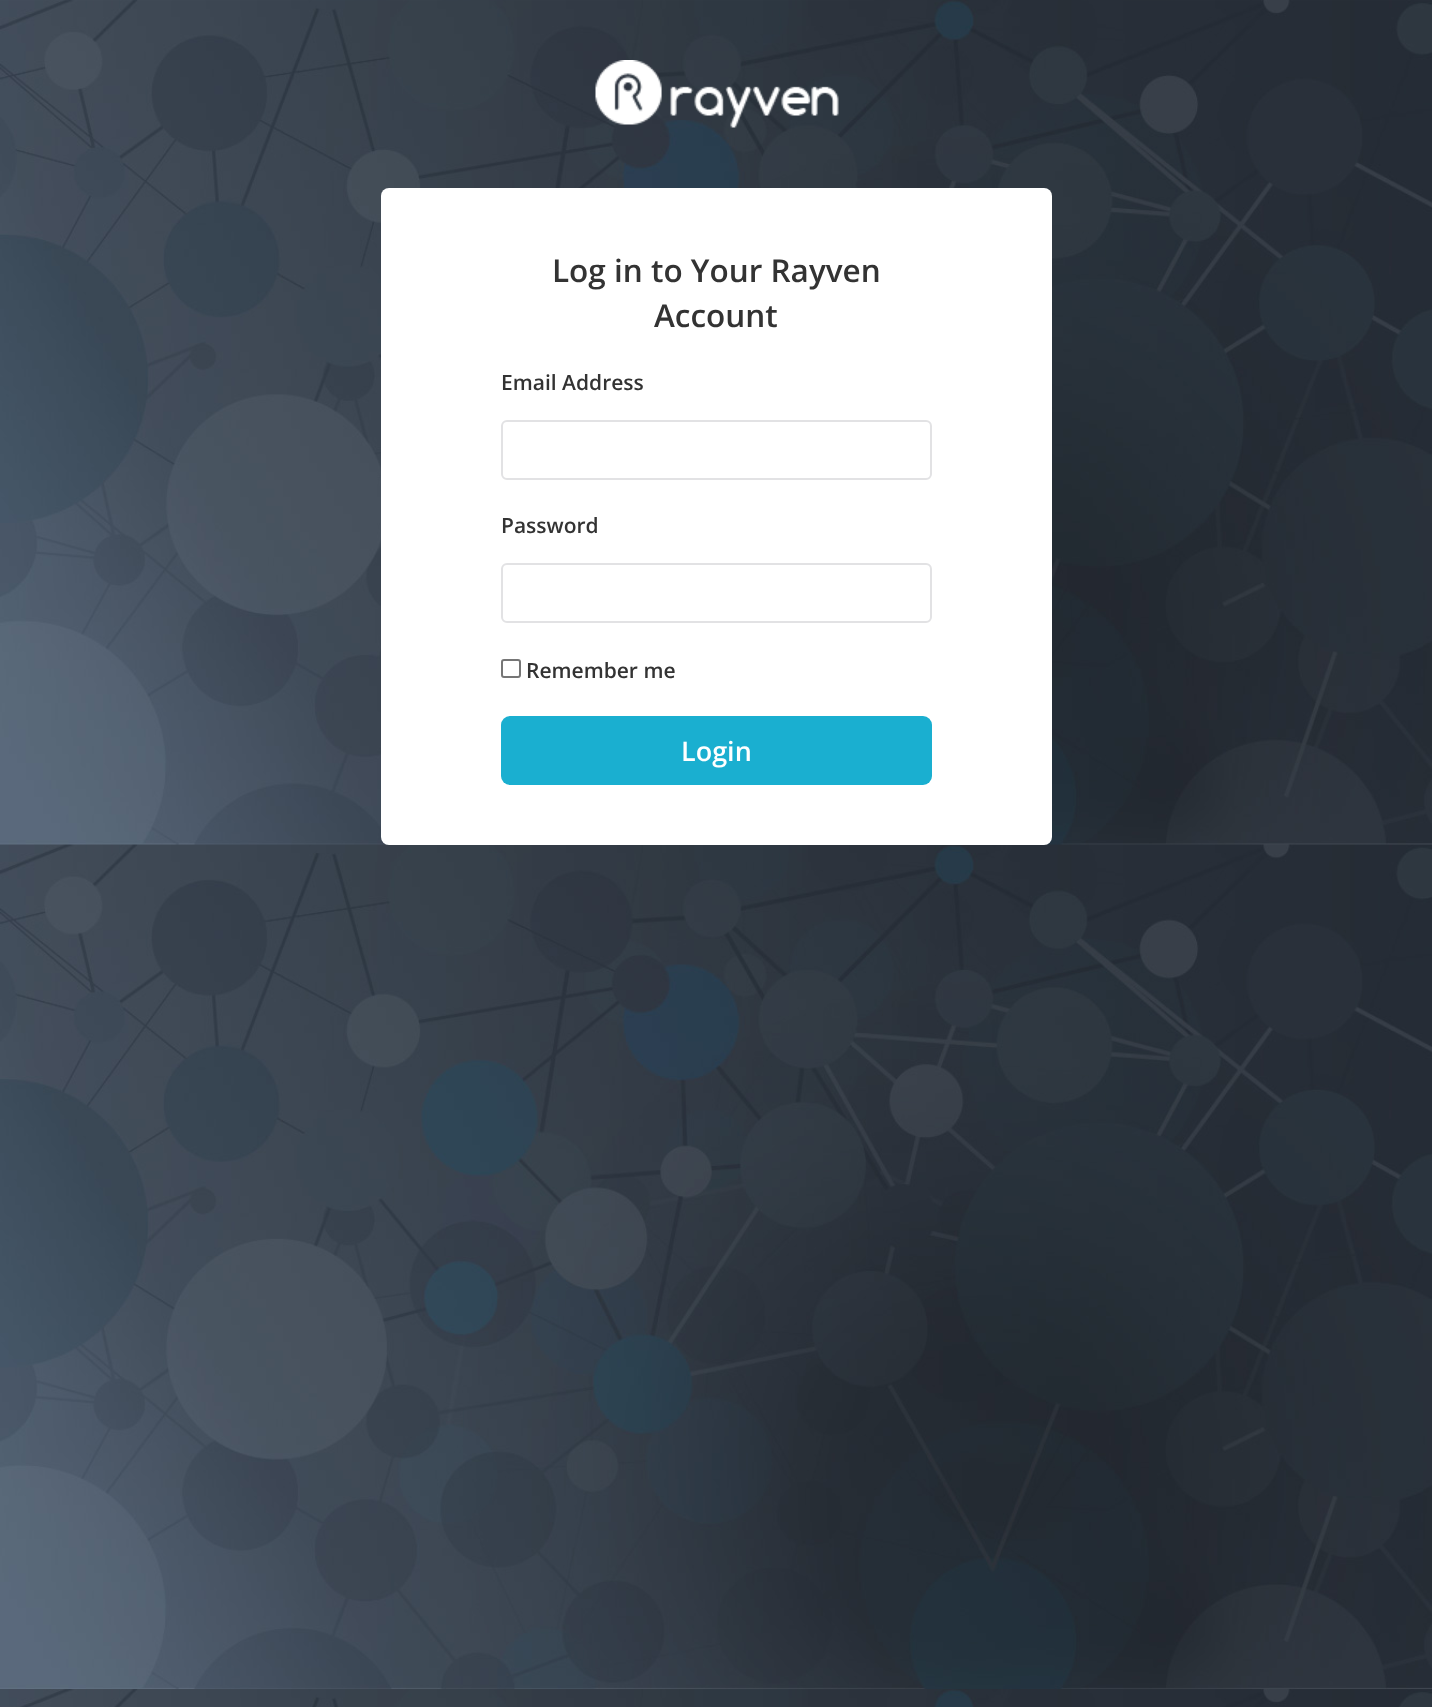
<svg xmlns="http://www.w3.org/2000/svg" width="1432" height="1707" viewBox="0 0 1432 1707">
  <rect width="100%" height="100%" fill="#ffffff"/>
  <image x="0" y="0" width="1432" height="1707" href="img1.png"/>
  <image x="595" y="60" width="244" height="68" href="img2.png"/>
  <rect x="381" y="188" width="671" height="657" rx="8" fill="#ffffff"/>
  <text x="552" y="282" font-family="Open Sans" font-size="31.5" font-weight="600" fill="#333333">Log in to Your Rayven</text>
  <text x="654" y="327" font-family="Open Sans" font-size="31.5" font-weight="600" fill="#333333">Account</text>
  <text x="501" y="390" font-family="Open Sans" font-size="21" font-weight="600" fill="#333333">Email Address</text>
  <rect x="502" y="421" width="429" height="58" rx="5" fill="none" stroke="#e2e2e4" stroke-width="2"/>
  <text x="501" y="533" font-family="Open Sans" font-size="21" font-weight="600" fill="#333333">Password</text>
  <rect x="502" y="564" width="429" height="58" rx="5" fill="none" stroke="#e2e2e4" stroke-width="2"/>
  <rect x="502" y="660" width="18" height="17" rx="2" fill="none" stroke="#767676" stroke-width="2"/>
  <text x="526" y="678" font-family="Open Sans" font-size="21" font-weight="600" fill="#333333">Remember me</text>
  <rect x="501" y="716" width="431" height="69" rx="9" fill="#1aafd0"/>
  <text x="681" y="761" font-family="Open Sans" font-size="27" font-weight="600" fill="#ffffff">Login</text>
</svg>
